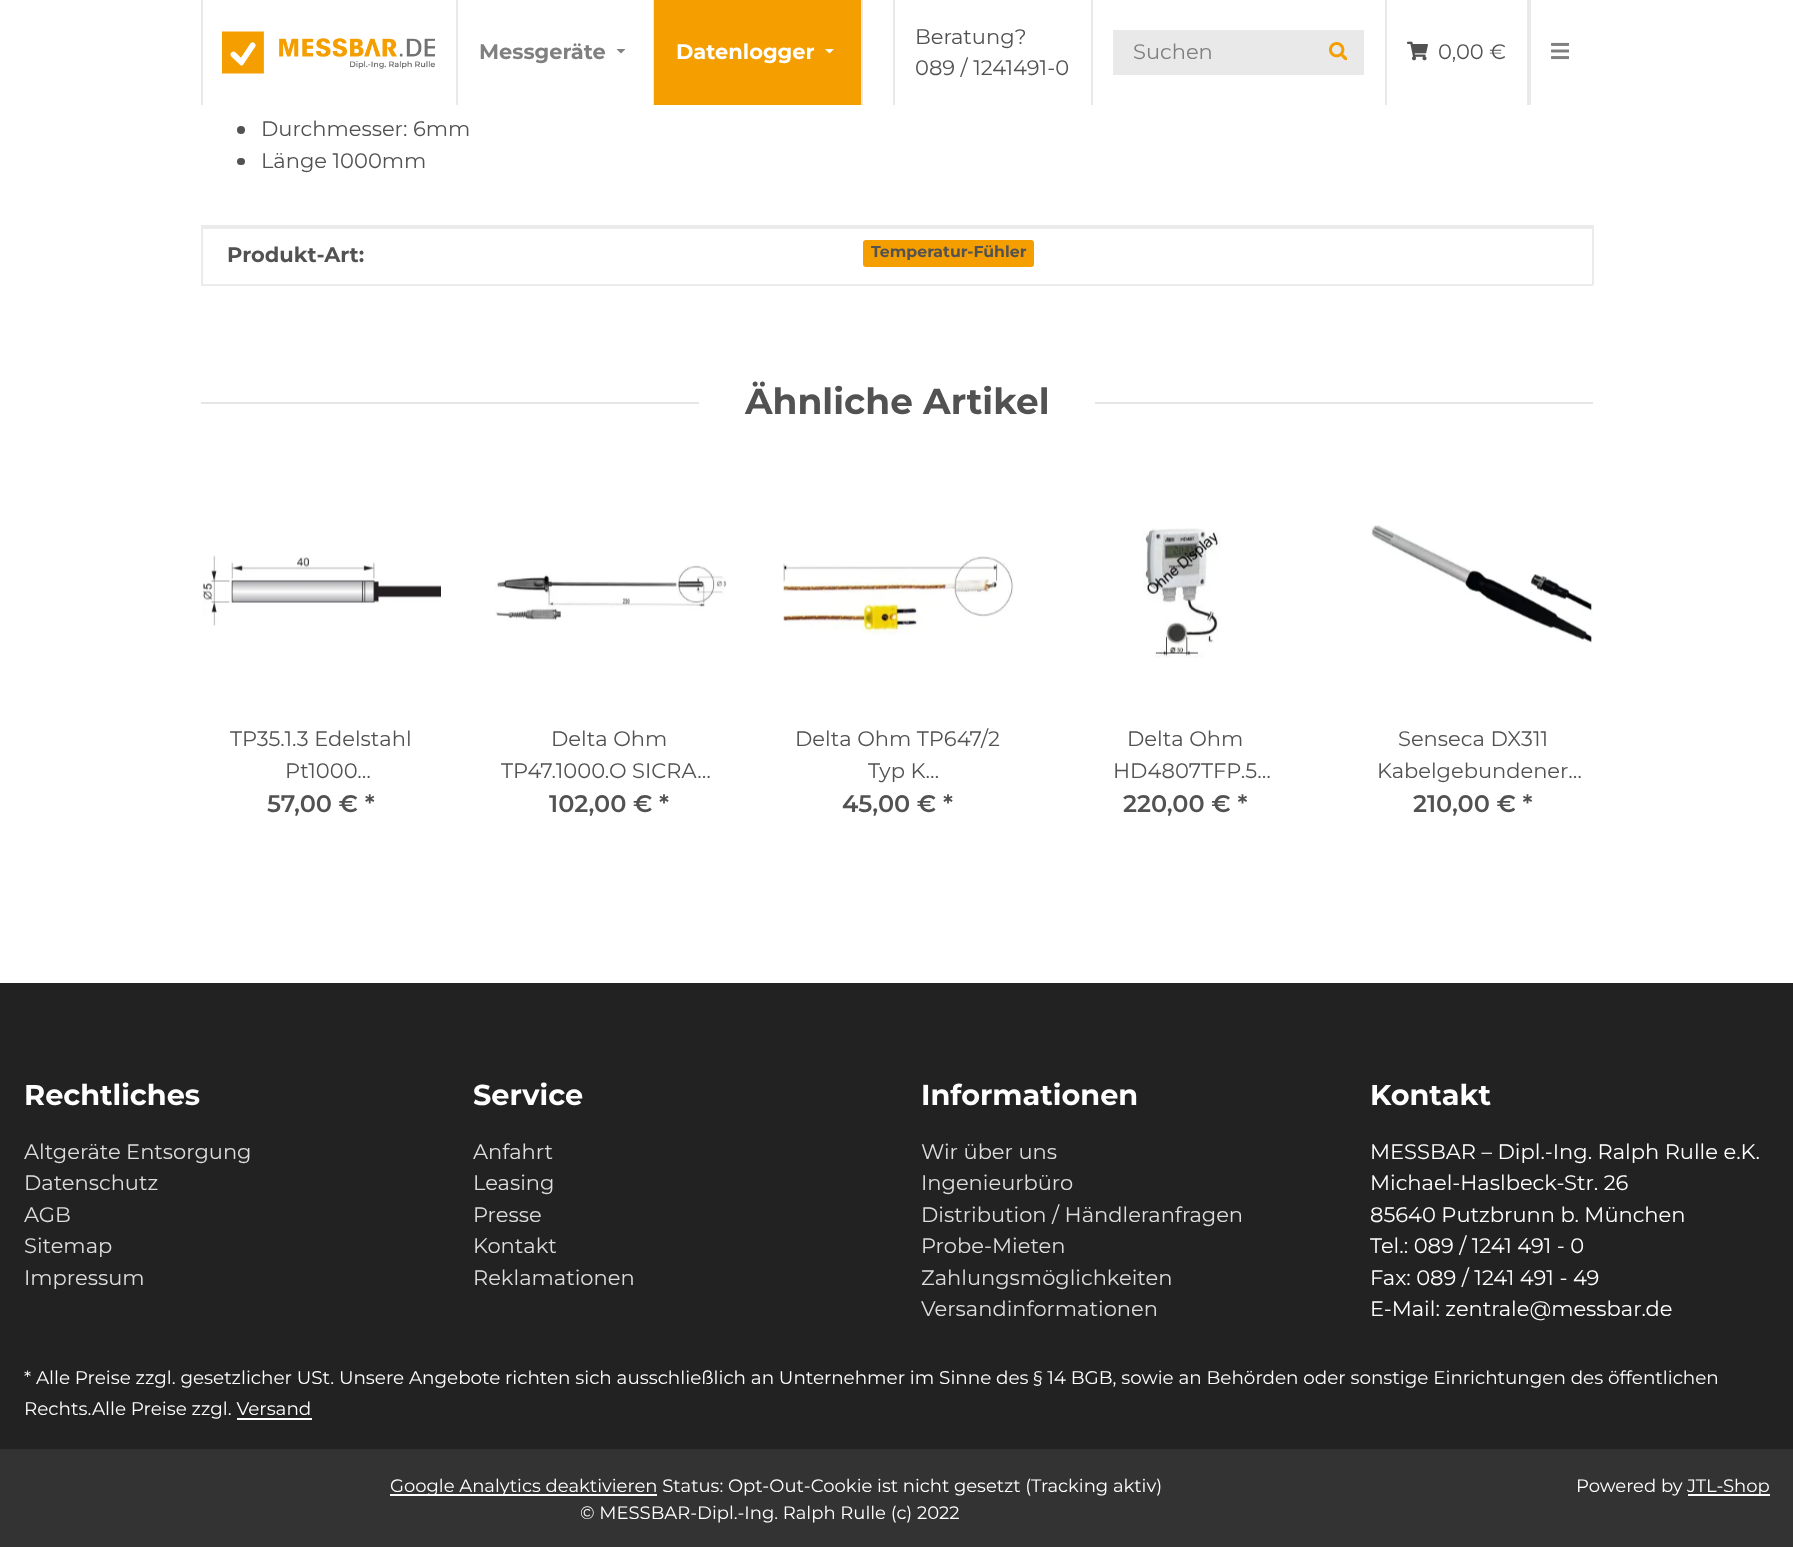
<svg xmlns="http://www.w3.org/2000/svg" width="1793" height="1547" viewBox="0 0 1793 1547">
  <rect width="100%" height="100%" fill="#ffffff"/>
  <rect x="201" y="0" width="2" height="105" fill="#e9e9e9"/>
  <rect x="456" y="0" width="2" height="105" fill="#e9e9e9"/>
  <image x="222" y="31" width="213" height="43" href="img1.png"/>
  <rect x="653" y="0" width="1" height="105" fill="#e9e9e9"/>
  <text x="479" y="59" font-family="Montserrat" font-size="21" font-weight="bold" fill="#808080">Messgeräte</text>
  <path d="M616.5 49H625.5L621 53.5Z" fill="#808080"/>
  <rect x="861" y="0" width="2" height="105" fill="#e9e9e9"/>
  <rect x="654" y="0" width="207" height="105" fill="#f49e00"/>
  <text x="676" y="59" font-family="Montserrat" font-size="21" font-weight="bold" fill="#ffffff">Datenlogger</text>
  <path d="M825 49H834L829.5 53.5Z" fill="#ffffff"/>
  <rect x="893" y="0" width="2" height="105" fill="#e9e9e9"/>
  <text x="915" y="44" font-family="Montserrat" font-size="21" fill="#525252">Beratung?</text>
  <text x="915" y="75" font-family="Montserrat" font-size="21" fill="#525252">089 / 1241491-0</text>
  <rect x="1091" y="0" width="2" height="105" fill="#e9e9e9"/>
  <rect x="1113" y="30" width="251" height="45" fill="#e9e9e9"/>
  <text x="1133" y="59" font-family="Montserrat" font-size="21" fill="#808080">Suchen</text>
  <image x="1329" y="42" width="18" height="18" href="img2.png"/>
  <rect x="1527" y="0" width="4" height="105" fill="#e9e9e9"/>
  <rect x="1385" y="0" width="2" height="105" fill="#e9e9e9"/>
  <image x="1407" y="41" width="21" height="20" href="img3.png"/>
  <text x="1438" y="59" font-family="Montserrat" font-size="21" fill="#525252">0,00 €</text>
  <image x="1551" y="42" width="18" height="18" href="img4.png"/>
  <circle cx="241" cy="130" r="4" fill="#525252"/>
  <text x="261" y="136" font-family="Montserrat" font-size="21" fill="#525252">Durchmesser: 6mm</text>
  <rect x="237" y="158" width="8" height="7" rx="3.5" fill="#525252"/>
  <text x="261" y="168" font-family="Montserrat" font-size="21" fill="#525252">Länge 1000mm</text>
  <rect x="201" y="225" width="1392" height="4" fill="#ebebeb"/>
  <rect x="1592" y="227" width="2" height="58" fill="#ebebeb"/>
  <rect x="1593" y="225" width="1" height="3" fill="#ebebeb"/>
  <rect x="201" y="284" width="1392" height="2" fill="#ebebeb"/>
  <rect x="201" y="227" width="2" height="58" fill="#ebebeb"/>
  <text x="227" y="262" font-family="Montserrat" font-size="21" font-weight="bold" fill="#525252">Produkt-Art:</text>
  <rect x="863" y="240" width="171" height="27" rx="3" fill="#f49e00"/>
  <text x="871" y="257" font-family="Montserrat" font-size="15.75" font-weight="bold" fill="#525252">Temperatur-Fühler</text>
  <rect x="201" y="402" width="498" height="2" fill="#e6e6e6"/>
  <text x="745" y="414" font-family="Montserrat" font-size="36" font-weight="bold" fill="#525252">Ähnliche Artikel</text>
  <rect x="1095" y="402" width="498" height="2" fill="#e6e6e6"/>
  <image x="202" y="555" width="239" height="71" href="img5.png"/>
  <text x="230" y="746" font-family="Montserrat" font-size="21" fill="#525252">TP35.1.3 Edelstahl</text>
  <text x="285" y="778" font-family="Montserrat" font-size="21" fill="#525252">Pt1000…</text>
  <text x="267" y="812" font-family="Montserrat" font-size="24" font-weight="600" fill="#525252">57,00 € *</text>
  <image x="495" y="565" width="231" height="56" href="img6.png"/>
  <text x="551" y="746" font-family="Montserrat" font-size="21" fill="#525252">Delta Ohm</text>
  <text x="501" y="778" font-family="Montserrat" font-size="21" fill="#525252">TP47.1000.O SICRA…</text>
  <text x="549" y="812" font-family="Montserrat" font-size="24" font-weight="600" fill="#525252">102,00 € *</text>
  <image x="782" y="556" width="232" height="79" href="img7.png"/>
  <text x="795" y="746" font-family="Montserrat" font-size="21" fill="#525252">Delta Ohm TP647/2</text>
  <text x="868" y="778" font-family="Montserrat" font-size="21" fill="#525252">Typ K…</text>
  <text x="842" y="812" font-family="Montserrat" font-size="24" font-weight="600" fill="#525252">45,00 € *</text>
  <image x="1143" y="528" width="78" height="130" href="img8.png"/>
  <text x="1127" y="746" font-family="Montserrat" font-size="21" fill="#525252">Delta Ohm</text>
  <text x="1113" y="778" font-family="Montserrat" font-size="21" fill="#525252">HD4807TFP.5…</text>
  <text x="1123" y="812" font-family="Montserrat" font-size="24" font-weight="600" fill="#525252">220,00 € *</text>
  <image x="1371" y="525" width="222" height="118" href="img9.png"/>
  <text x="1398" y="746" font-family="Montserrat" font-size="21" fill="#525252">Senseca DX311</text>
  <text x="1377" y="778" font-family="Montserrat" font-size="21" fill="#525252">Kabelgebundener…</text>
  <text x="1413" y="812" font-family="Montserrat" font-size="24" font-weight="600" fill="#525252">210,00 € *</text>
  <rect x="0" y="983" width="1793" height="466" fill="#222222"/>
  <text x="24" y="1105" font-family="Montserrat" font-size="28.75" font-weight="bold" fill="#ffffff">Rechtliches</text>
  <text x="24" y="1159" font-family="Montserrat" font-size="21" fill="#dddddd">Altgeräte Entsorgung</text>
  <text x="24" y="1190" font-family="Montserrat" font-size="21" fill="#dddddd">Datenschutz</text>
  <text x="24" y="1222" font-family="Montserrat" font-size="21" fill="#dddddd">AGB</text>
  <text x="24" y="1253" font-family="Montserrat" font-size="21" fill="#dddddd">Sitemap</text>
  <text x="24" y="1285" font-family="Montserrat" font-size="21" fill="#dddddd">Impressum</text>
  <text x="473" y="1105" font-family="Montserrat" font-size="28.75" font-weight="bold" fill="#ffffff">Service</text>
  <text x="473" y="1159" font-family="Montserrat" font-size="21" fill="#dddddd">Anfahrt</text>
  <text x="473" y="1190" font-family="Montserrat" font-size="21" fill="#dddddd">Leasing</text>
  <text x="473" y="1222" font-family="Montserrat" font-size="21" fill="#dddddd">Presse</text>
  <text x="473" y="1253" font-family="Montserrat" font-size="21" fill="#dddddd">Kontakt</text>
  <text x="473" y="1285" font-family="Montserrat" font-size="21" fill="#dddddd">Reklamationen</text>
  <text x="921" y="1105" font-family="Montserrat" font-size="28.75" font-weight="bold" fill="#ffffff">Informationen</text>
  <text x="921" y="1159" font-family="Montserrat" font-size="21" fill="#dddddd">Wir über uns</text>
  <text x="921" y="1190" font-family="Montserrat" font-size="21" fill="#dddddd">Ingenieurbüro</text>
  <text x="921" y="1222" font-family="Montserrat" font-size="21" fill="#dddddd">Distribution / Händleranfragen</text>
  <text x="921" y="1253" font-family="Montserrat" font-size="21" fill="#dddddd">Probe-Mieten</text>
  <text x="921" y="1285" font-family="Montserrat" font-size="21" fill="#dddddd">Zahlungsmöglichkeiten</text>
  <text x="921" y="1316" font-family="Montserrat" font-size="21" fill="#dddddd">Versandinformationen</text>
  <text x="1370" y="1105" font-family="Montserrat" font-size="28.75" font-weight="bold" fill="#ffffff">Kontakt</text>
  <text x="1370" y="1159" font-family="Montserrat" font-size="21" fill="#ffffff">MESSBAR – Dipl.-Ing. Ralph Rulle e.K.</text>
  <text x="1370" y="1190" font-family="Montserrat" font-size="21" fill="#ffffff">Michael-Haslbeck-Str. 26</text>
  <text x="1370" y="1222" font-family="Montserrat" font-size="21" fill="#ffffff">85640 Putzbrunn b. München</text>
  <text x="1370" y="1253" font-family="Montserrat" font-size="21" fill="#ffffff">Tel.: 089 / 1241 491 - 0</text>
  <text x="1370" y="1285" font-family="Montserrat" font-size="21" fill="#ffffff">Fax: 089 / 1241 491 - 49</text>
  <text x="1370" y="1316" font-family="Montserrat" font-size="21" fill="#ffffff">E-Mail: zentrale@messbar.de</text>
  <text x="24" y="1384" font-family="Montserrat" font-size="18.38" fill="#ffffff">* Alle Preise zzgl. gesetzlicher USt. Unsere Angebote richten sich ausschließlich an Unternehmer im Sinne des § 14 BGB, sowie an Behörden oder sonstige Einrichtungen des öffentlichen</text>
  <text x="24" y="1415" font-family="Montserrat" font-size="18.38" fill="#ffffff">Rechts.Alle Preise zzgl. Versand</text>
  <rect x="237" y="1418" width="75" height="2" fill="#ffffff"/>
  <rect x="0" y="1449" width="1793" height="98" fill="#333333"/>
  <rect x="390" y="1494" width="267" height="2" fill="#ffffff"/>
  <text x="390" y="1492" font-family="Montserrat" font-size="18" fill="#ffffff">Google Analytics deaktivieren Status: Opt-Out-Cookie ist nicht gesetzt (Tracking aktiv)</text>
  <text x="580" y="1519" font-family="Montserrat" font-size="18" fill="#ffffff">© MESSBAR-Dipl.-Ing. Ralph Rulle (c) 2022</text>
  <text x="1576" y="1492" font-family="Montserrat" font-size="18" fill="#ffffff">Powered by</text>
  <rect x="1688" y="1494" width="82" height="2" fill="#ffffff"/>
  <text x="1687" y="1492" font-family="Montserrat" font-size="18" fill="#ffffff">JTL-Shop</text>
</svg>
